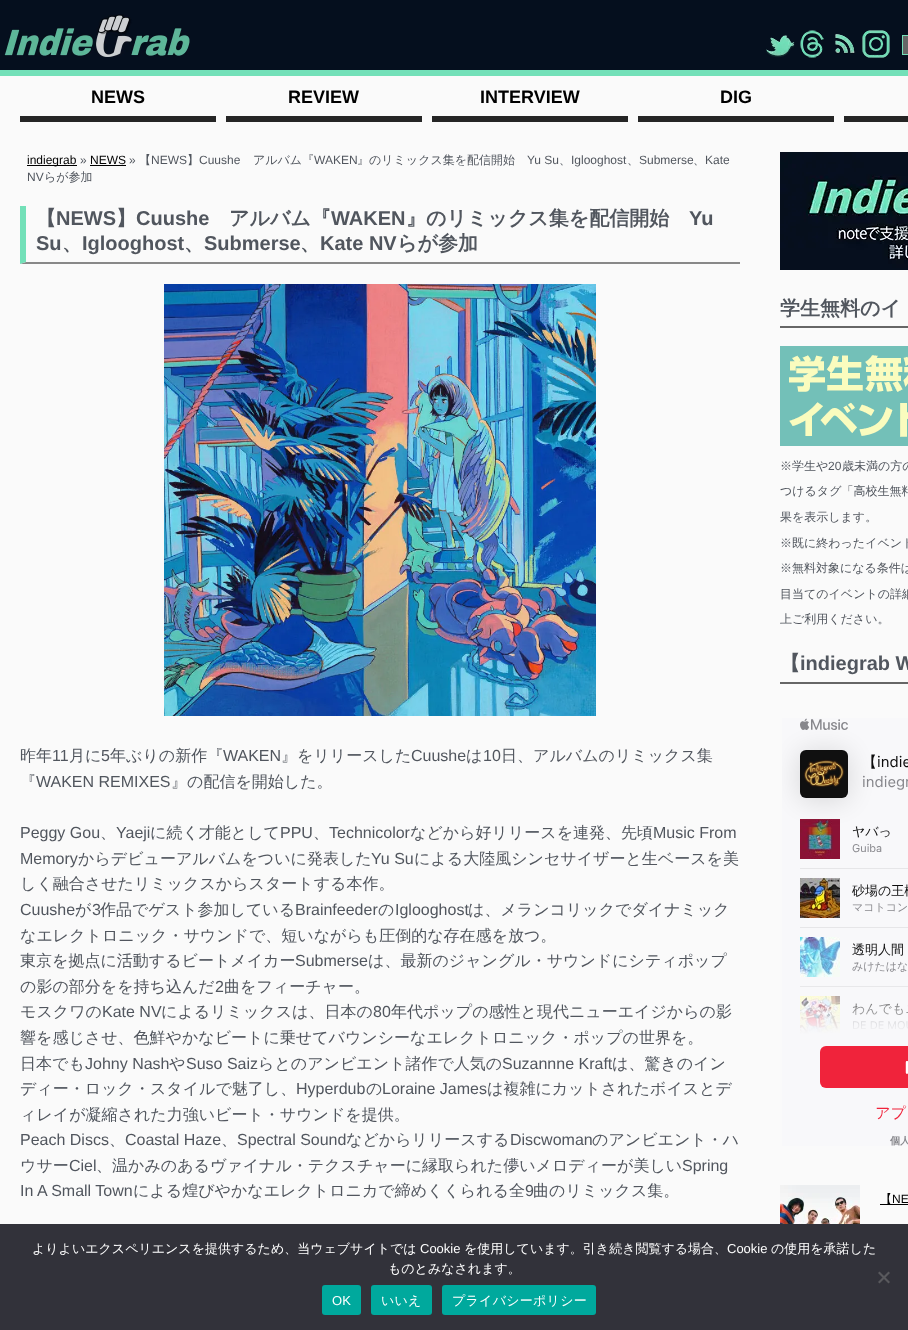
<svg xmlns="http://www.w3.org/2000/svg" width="908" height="1330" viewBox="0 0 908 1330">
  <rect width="100%" height="100%" fill="#050f1e"/>
  <rect x="0" y="70" width="908" height="6" fill="#73e0b8"/>
  <image x="4" y="14" width="186" height="43" href="img1.png"/>
  <image x="766" y="35" width="29" height="23" href="img2.png"/>
  <image x="800" y="30" width="24" height="29" href="img3.png"/>
  <image x="835" y="34" width="20" height="20" href="img4.png"/>
  <image x="862" y="30" width="28" height="28" href="img5.png"/>
  <rect x="902.5" y="35.5" width="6" height="19" fill="#666666" stroke="#73e0b8"/>
  <rect x="0" y="76" width="908" height="1148" fill="#fafafa"/>
  <rect x="20" y="116" width="196" height="6" fill="#252525"/>
  <text x="91" y="103" font-family="Liberation Sans" font-size="18" font-weight="bold" fill="#000000">NEWS</text>
  <rect x="226" y="116" width="196" height="6" fill="#252525"/>
  <text x="288" y="103" font-family="Liberation Sans" font-size="18" font-weight="bold" fill="#000000">REVIEW</text>
  <rect x="432" y="116" width="196" height="6" fill="#252525"/>
  <text x="480" y="103" font-family="Liberation Sans" font-size="18" font-weight="bold" fill="#000000">INTERVIEW</text>
  <rect x="638" y="116" width="196" height="6" fill="#252525"/>
  <text x="720" y="103" font-family="Liberation Sans" font-size="18" font-weight="bold" fill="#000000">DIG</text>
  <rect x="844" y="116" width="64" height="6" fill="#252525"/>
  <rect x="27" y="165" width="50" height="1" fill="#000000"/>
  <text x="27" y="164" font-family="Liberation Sans" font-size="12" fill="#000000">indiegrab</text>
  <text x="80" y="164" font-family="Liberation Sans" font-size="12" fill="#51565e">»</text>
  <text x="90" y="164" font-family="Liberation Sans" font-size="12" fill="#000000">NEWS</text>
  <rect x="90" y="165" width="36" height="1" fill="#000000"/>
  <text x="129" y="164" font-family="Liberation Sans" font-size="12" fill="#51565e">»</text>
  <text x="139" y="164" font-family="WenQuanYi Zen Hei" font-size="12" font-weight="500" fill="#51565e">【</text>
  <text x="151" y="164" font-family="Liberation Sans" font-size="12" fill="#51565e">NEWS</text>
  <text x="187" y="164" font-family="WenQuanYi Zen Hei" font-size="12" font-weight="500" fill="#51565e">】</text>
  <text x="199" y="164" font-family="Liberation Sans" font-size="12" fill="#51565e">Cuushe</text>
  <text x="253" y="164" font-family="WenQuanYi Zen Hei" font-size="12" font-weight="500" fill="#51565e">アルバム『</text>
  <text x="314" y="164" font-family="Liberation Sans" font-size="12" fill="#51565e">WAKEN</text>
  <text x="357" y="164" font-family="WenQuanYi Zen Hei" font-size="12" font-weight="500" fill="#51565e">』のリミックス集を配信開始</text>
  <text x="527" y="164" font-family="Liberation Sans" font-size="12" fill="#51565e">Yu Su</text>
  <text x="571" y="164" font-family="Liberation Sans" font-size="12" fill="#51565e">Iglooghost</text>
  <text x="639" y="164" font-family="Liberation Sans" font-size="12" fill="#51565e">Submerse</text>
  <text x="705" y="164" font-family="Liberation Sans" font-size="12" fill="#51565e">Kate</text>
  <text x="559" y="164" font-family="WenQuanYi Zen Hei" font-size="12" font-weight="500" fill="#51565e">、</text>
  <text x="627" y="164" font-family="WenQuanYi Zen Hei" font-size="12" font-weight="500" fill="#51565e">、</text>
  <text x="693" y="164" font-family="WenQuanYi Zen Hei" font-size="12" font-weight="500" fill="#51565e">、</text>
  <text x="27" y="181" font-family="Liberation Sans" font-size="12" fill="#51565e">NV</text>
  <text x="44" y="181" font-family="WenQuanYi Zen Hei" font-size="12" font-weight="500" fill="#51565e">らが参加</text>
  <path d="M740 264H20L26 262H740Z" fill="#888888"/>
  <path d="M20 264V206H26V262Z" fill="#73e0b8"/>
  <text x="36" y="225" font-family="WenQuanYi Zen Hei" font-size="20" font-weight="bold" fill="#51565e">【</text>
  <text x="56" y="225" font-family="Liberation Sans" font-size="20" font-weight="bold" fill="#51565e">NEWS</text>
  <text x="116" y="225" font-family="WenQuanYi Zen Hei" font-size="20" font-weight="bold" fill="#51565e">】</text>
  <text x="136" y="225" font-family="Liberation Sans" font-size="20" font-weight="bold" fill="#51565e">Cuushe</text>
  <text x="229" y="225" font-family="WenQuanYi Zen Hei" font-size="20" font-weight="bold" fill="#51565e">アルバム『</text>
  <text x="331" y="225" font-family="Liberation Sans" font-size="20" font-weight="bold" fill="#51565e">WAKEN</text>
  <text x="406" y="225" font-family="WenQuanYi Zen Hei" font-size="20" font-weight="bold" fill="#51565e">』のリミックス集を配信開始</text>
  <text x="689" y="225" font-family="Liberation Sans" font-size="20" font-weight="bold" fill="#51565e">Yu</text>
  <text x="36" y="250" font-family="Liberation Sans" font-size="20" font-weight="bold" fill="#51565e">Su</text>
  <text x="62" y="250" font-family="WenQuanYi Zen Hei" font-size="20" font-weight="bold" fill="#51565e">、</text>
  <text x="82" y="250" font-family="Liberation Sans" font-size="20" font-weight="bold" fill="#51565e">Iglooghost</text>
  <text x="184" y="250" font-family="WenQuanYi Zen Hei" font-size="20" font-weight="bold" fill="#51565e">、</text>
  <text x="204" y="250" font-family="Liberation Sans" font-size="20" font-weight="bold" fill="#51565e">Submerse</text>
  <text x="300" y="250" font-family="WenQuanYi Zen Hei" font-size="20" font-weight="bold" fill="#51565e">、</text>
  <text x="320" y="250" font-family="Liberation Sans" font-size="20" font-weight="bold" fill="#51565e">Kate NV</text>
  <text x="397" y="250" font-family="WenQuanYi Zen Hei" font-size="20" font-weight="bold" fill="#51565e">らが参加</text>
  <image x="164" y="284" width="432" height="432" href="img6.png"/>
  <text x="20" y="761" font-family="WenQuanYi Zen Hei" font-size="16" font-weight="500" fill="#51565e">昨年</text>
  <text x="52" y="761" font-family="Liberation Sans" font-size="16" fill="#51565e">11</text>
  <text x="69" y="761" font-family="WenQuanYi Zen Hei" font-size="16" font-weight="500" fill="#51565e">月に</text>
  <text x="101" y="761" font-family="Liberation Sans" font-size="16" fill="#51565e">5</text>
  <text x="110" y="761" font-family="WenQuanYi Zen Hei" font-size="16" font-weight="500" fill="#51565e">年ぶりの新作『</text>
  <text x="223" y="761" font-family="Liberation Sans" font-size="16" fill="#51565e">WAKEN</text>
  <text x="281" y="761" font-family="WenQuanYi Zen Hei" font-size="16" font-weight="500" fill="#51565e">』をリリースした</text>
  <text x="411" y="761" font-family="Liberation Sans" font-size="16" fill="#51565e">Cuushe</text>
  <text x="466" y="761" font-family="WenQuanYi Zen Hei" font-size="16" font-weight="500" fill="#51565e">は</text>
  <text x="483" y="761" font-family="Liberation Sans" font-size="16" fill="#51565e">10</text>
  <text x="501" y="761" font-family="WenQuanYi Zen Hei" font-size="16" font-weight="500" fill="#51565e">日、アルバムのリミックス集</text>
  <text x="20" y="787" font-family="WenQuanYi Zen Hei" font-size="16" font-weight="500" fill="#51565e">『</text>
  <text x="36" y="787" font-family="Liberation Sans" font-size="16" fill="#51565e">WAKEN REMIXES</text>
  <text x="171" y="787" font-family="WenQuanYi Zen Hei" font-size="16" font-weight="500" fill="#51565e">』の配信を開始した。</text>
  <text x="20" y="838" font-family="Liberation Sans" font-size="16" fill="#51565e">Peggy Gou</text>
  <text x="100" y="838" font-family="WenQuanYi Zen Hei" font-size="16" font-weight="500" fill="#51565e">、</text>
  <text x="116" y="838" font-family="Liberation Sans" font-size="16" fill="#51565e">Yaeji</text>
  <text x="150" y="838" font-family="WenQuanYi Zen Hei" font-size="16" font-weight="500" fill="#51565e">に続く才能として</text>
  <text x="280" y="838" font-family="Liberation Sans" font-size="16" fill="#51565e">PPU</text>
  <text x="313" y="838" font-family="WenQuanYi Zen Hei" font-size="16" font-weight="500" fill="#51565e">、</text>
  <text x="329" y="838" font-family="Liberation Sans" font-size="16" fill="#51565e">Technicolor</text>
  <text x="410" y="838" font-family="WenQuanYi Zen Hei" font-size="16" font-weight="500" fill="#51565e">などから好リリースを連発、先頃</text>
  <text x="653" y="838" font-family="Liberation Sans" font-size="16" fill="#51565e">Music From</text>
  <text x="20" y="864" font-family="Liberation Sans" font-size="16" fill="#51565e">Memory</text>
  <text x="78" y="864" font-family="WenQuanYi Zen Hei" font-size="16" font-weight="500" fill="#51565e">からデビューアルバムをついに発表した</text>
  <text x="371" y="864" font-family="Liberation Sans" font-size="16" fill="#51565e">Yu Su</text>
  <text x="414" y="864" font-family="WenQuanYi Zen Hei" font-size="16" font-weight="500" fill="#51565e">による大陸風シンセサイザーと生ベースを美</text>
  <text x="20" y="889" font-family="WenQuanYi Zen Hei" font-size="16" font-weight="500" fill="#51565e">しく融合させたリミックスからスタートする本作。</text>
  <text x="20" y="915" font-family="Liberation Sans" font-size="16" fill="#51565e">Cuushe</text>
  <text x="75" y="915" font-family="WenQuanYi Zen Hei" font-size="16" font-weight="500" fill="#51565e">が</text>
  <text x="92" y="915" font-family="Liberation Sans" font-size="16" fill="#51565e">3</text>
  <text x="100" y="915" font-family="WenQuanYi Zen Hei" font-size="16" font-weight="500" fill="#51565e">作品でゲスト参加している</text>
  <text x="295" y="915" font-family="Liberation Sans" font-size="16" fill="#51565e">Brainfeeder</text>
  <text x="378" y="915" font-family="WenQuanYi Zen Hei" font-size="16" font-weight="500" fill="#51565e">の</text>
  <text x="395" y="915" font-family="Liberation Sans" font-size="16" fill="#51565e">Iglooghost</text>
  <text x="468" y="915" font-family="WenQuanYi Zen Hei" font-size="16" font-weight="500" fill="#51565e">は、メランコリックでダイナミック</text>
  <text x="20" y="941" font-family="WenQuanYi Zen Hei" font-size="16" font-weight="500" fill="#51565e">なエレクトロニック・サウンドで、短いながらも圧倒的な存在感を放つ。</text>
  <text x="20" y="966" font-family="WenQuanYi Zen Hei" font-size="16" font-weight="500" fill="#51565e">東京を拠点に活動するビートメイカー</text>
  <text x="295" y="966" font-family="Liberation Sans" font-size="16" fill="#51565e">Submerse</text>
  <text x="368" y="966" font-family="WenQuanYi Zen Hei" font-size="16" font-weight="500" fill="#51565e">は、最新のジャングル・サウンドにシティポップ</text>
  <text x="20" y="992" font-family="WenQuanYi Zen Hei" font-size="16" font-weight="500" fill="#51565e">の影の部分をを持ち込んだ</text>
  <text x="215" y="992" font-family="Liberation Sans" font-size="16" fill="#51565e">2</text>
  <text x="224" y="992" font-family="WenQuanYi Zen Hei" font-size="16" font-weight="500" fill="#51565e">曲をフィーチャー。</text>
  <text x="20" y="1017" font-family="WenQuanYi Zen Hei" font-size="16" font-weight="500" fill="#51565e">モスクワの</text>
  <text x="102" y="1017" font-family="Liberation Sans" font-size="16" fill="#51565e">Kate NV</text>
  <text x="161" y="1017" font-family="WenQuanYi Zen Hei" font-size="16" font-weight="500" fill="#51565e">によるリミックスは、日本の</text>
  <text x="373" y="1017" font-family="Liberation Sans" font-size="16" fill="#51565e">80</text>
  <text x="391" y="1017" font-family="WenQuanYi Zen Hei" font-size="16" font-weight="500" fill="#51565e">年代ポップの感性と現代ニューエイジからの影</text>
  <text x="20" y="1043" font-family="WenQuanYi Zen Hei" font-size="16" font-weight="500" fill="#51565e">響を感じさせ、色鮮やかなビートに乗せてバウンシーなエレクトロニック・ポップの世界を。</text>
  <text x="20" y="1069" font-family="WenQuanYi Zen Hei" font-size="16" font-weight="500" fill="#51565e">日本でも</text>
  <text x="85" y="1069" font-family="Liberation Sans" font-size="16" fill="#51565e">Johny Nash</text>
  <text x="169" y="1069" font-family="WenQuanYi Zen Hei" font-size="16" font-weight="500" fill="#51565e">や</text>
  <text x="186" y="1069" font-family="Liberation Sans" font-size="16" fill="#51565e">Suso Saiz</text>
  <text x="258" y="1069" font-family="WenQuanYi Zen Hei" font-size="16" font-weight="500" fill="#51565e">らとのアンビエント諸作で人気の</text>
  <text x="502" y="1069" font-family="Liberation Sans" font-size="16" fill="#51565e">Suzannne Kraft</text>
  <text x="612" y="1069" font-family="WenQuanYi Zen Hei" font-size="16" font-weight="500" fill="#51565e">は、驚きのイン</text>
  <text x="20" y="1094" font-family="WenQuanYi Zen Hei" font-size="16" font-weight="500" fill="#51565e">ディー・ロック・スタイルで魅了し、</text>
  <text x="296" y="1094" font-family="Liberation Sans" font-size="16" fill="#51565e">Hyperdub</text>
  <text x="366" y="1094" font-family="WenQuanYi Zen Hei" font-size="16" font-weight="500" fill="#51565e">の</text>
  <text x="382" y="1094" font-family="Liberation Sans" font-size="16" fill="#51565e">Loraine James</text>
  <text x="487" y="1094" font-family="WenQuanYi Zen Hei" font-size="16" font-weight="500" fill="#51565e">は複雑にカットされたボイスとデ</text>
  <text x="20" y="1120" font-family="WenQuanYi Zen Hei" font-size="16" font-weight="500" fill="#51565e">ィレイが凝縮された力強いビート・サウンドを提供。</text>
  <text x="20" y="1145" font-family="Liberation Sans" font-size="16" fill="#51565e">Peach Discs</text>
  <text x="109" y="1145" font-family="WenQuanYi Zen Hei" font-size="16" font-weight="500" fill="#51565e">、</text>
  <text x="125" y="1145" font-family="Liberation Sans" font-size="16" fill="#51565e">Coastal Haze</text>
  <text x="221" y="1145" font-family="WenQuanYi Zen Hei" font-size="16" font-weight="500" fill="#51565e">、</text>
  <text x="237" y="1145" font-family="Liberation Sans" font-size="16" fill="#51565e">Spectral Sound</text>
  <text x="346" y="1145" font-family="WenQuanYi Zen Hei" font-size="16" font-weight="500" fill="#51565e">などからリリースする</text>
  <text x="510" y="1145" font-family="Liberation Sans" font-size="16" fill="#51565e">Discwoman</text>
  <text x="592" y="1145" font-family="WenQuanYi Zen Hei" font-size="16" font-weight="500" fill="#51565e">のアンビエント・ハ</text>
  <text x="20" y="1171" font-family="WenQuanYi Zen Hei" font-size="16" font-weight="500" fill="#51565e">ウサー</text>
  <text x="69" y="1171" font-family="Liberation Sans" font-size="16" fill="#51565e">Ciel</text>
  <text x="96" y="1171" font-family="WenQuanYi Zen Hei" font-size="16" font-weight="500" fill="#51565e">、温かみのあるヴァイナル・テクスチャーに縁取られた儚いメロディーが美しい</text>
  <text x="682" y="1171" font-family="Liberation Sans" font-size="16" fill="#51565e">Spring</text>
  <text x="20" y="1196" font-family="Liberation Sans" font-size="16" fill="#51565e">In A Small Town</text>
  <text x="133" y="1196" font-family="WenQuanYi Zen Hei" font-size="16" font-weight="500" fill="#51565e">による煌びやかなエレクトロニカで締めくくられる全</text>
  <text x="525" y="1196" font-family="Liberation Sans" font-size="16" fill="#51565e">9</text>
  <text x="533" y="1196" font-family="WenQuanYi Zen Hei" font-size="16" font-weight="500" fill="#51565e">曲のリミックス集。</text>
  <image x="780" y="152" width="128" height="118" href="img7.png"/>
  <rect x="780" y="326" width="128" height="2" fill="#666666"/>
  <text x="780" y="315" font-family="WenQuanYi Zen Hei" font-size="20" font-weight="bold" fill="#51565e">学生無料のイ</text>
  <image x="780" y="346" width="128" height="100" href="img8.png"/>
  <text x="780" y="470" font-family="WenQuanYi Zen Hei" font-size="12" font-weight="500" fill="#51565e">※学生や</text>
  <text x="828" y="470" font-family="Liberation Sans" font-size="12" fill="#51565e">20</text>
  <text x="842" y="470" font-family="WenQuanYi Zen Hei" font-size="12" font-weight="500" fill="#51565e">歳未満の方の</text>
  <text x="780" y="495" font-family="WenQuanYi Zen Hei" font-size="12" font-weight="500" fill="#51565e">つけるタグ「高校生無料</text>
  <text x="780" y="521" font-family="WenQuanYi Zen Hei" font-size="12" font-weight="500" fill="#51565e">果を表示します。</text>
  <text x="780" y="547" font-family="WenQuanYi Zen Hei" font-size="12" font-weight="500" fill="#51565e">※既に終わったイベント</text>
  <text x="780" y="572" font-family="WenQuanYi Zen Hei" font-size="12" font-weight="500" fill="#51565e">※無料対象になる条件は</text>
  <text x="780" y="598" font-family="WenQuanYi Zen Hei" font-size="12" font-weight="500" fill="#51565e">目当てのイベントの詳細</text>
  <text x="780" y="623" font-family="WenQuanYi Zen Hei" font-size="12" font-weight="500" fill="#51565e">上ご利用ください。</text>
  <rect x="780" y="682" width="128" height="2" fill="#666666"/>
  <text x="780" y="670" font-family="WenQuanYi Zen Hei" font-size="20" font-weight="bold" fill="#51565e">【</text>
  <text x="800" y="670" font-family="Liberation Sans" font-size="20" font-weight="bold" fill="#51565e">indiegrab W</text>
  <image x="782" y="718" width="126" height="428" href="img9.png"/>
  <image x="780" y="1185" width="80" height="39" href="img10.png"/>
  <rect x="880" y="1204" width="28" height="1" fill="#000000"/>
  <text x="880" y="1203" font-family="WenQuanYi Zen Hei" font-size="12" font-weight="500" fill="#000000">【</text>
  <text x="892" y="1203" font-family="Liberation Sans" font-size="12" fill="#000000">NE</text>
  <rect x="0" y="1224" width="908" height="106" fill="#32323a"/>
  <text x="32" y="1253" font-family="WenQuanYi Zen Hei" font-size="13" font-weight="500" fill="#ffffff">よりよいエクスペリエンスを提供するため、当ウェブサイトでは</text>
  <text x="420" y="1253" font-family="Liberation Sans" font-size="13" fill="#ffffff">Cookie</text>
  <text x="464" y="1253" font-family="WenQuanYi Zen Hei" font-size="13" font-weight="500" fill="#ffffff">を使用しています。引き続き閲覧する場合、</text>
  <text x="727" y="1253" font-family="Liberation Sans" font-size="13" fill="#ffffff">Cookie</text>
  <text x="771" y="1253" font-family="WenQuanYi Zen Hei" font-size="13" font-weight="500" fill="#ffffff">の使用を承諾した</text>
  <text x="388" y="1273" font-family="WenQuanYi Zen Hei" font-size="13" font-weight="500" fill="#ffffff">ものとみなされます。</text>
  <path d="M888.5 1271.5L890 1273L879.5 1283.5L878 1282Z" fill="#59595d"/>
  <path d="M878 1273L879.5 1271.5L890 1282L888.5 1283.5Z" fill="#59595d"/>
  <rect x="322" y="1285" width="39" height="30" rx="3" fill="#00a99d"/>
  <text x="332" y="1305" font-family="Liberation Sans" font-size="13" letter-spacing="0.25" fill="#ffffff">OK</text>
  <rect x="371" y="1285" width="61" height="30" rx="3" fill="#00a99d"/>
  <text x="381" y="1305" font-family="WenQuanYi Zen Hei" font-size="13" font-weight="500" letter-spacing="0.25" fill="#ffffff">いいえ</text>
  <rect x="442" y="1285" width="154" height="30" rx="3" fill="#00a99d"/>
  <text x="452" y="1305" font-family="WenQuanYi Zen Hei" font-size="13" font-weight="500" letter-spacing="0.25" fill="#ffffff">プライバシーポリシー</text>
</svg>
